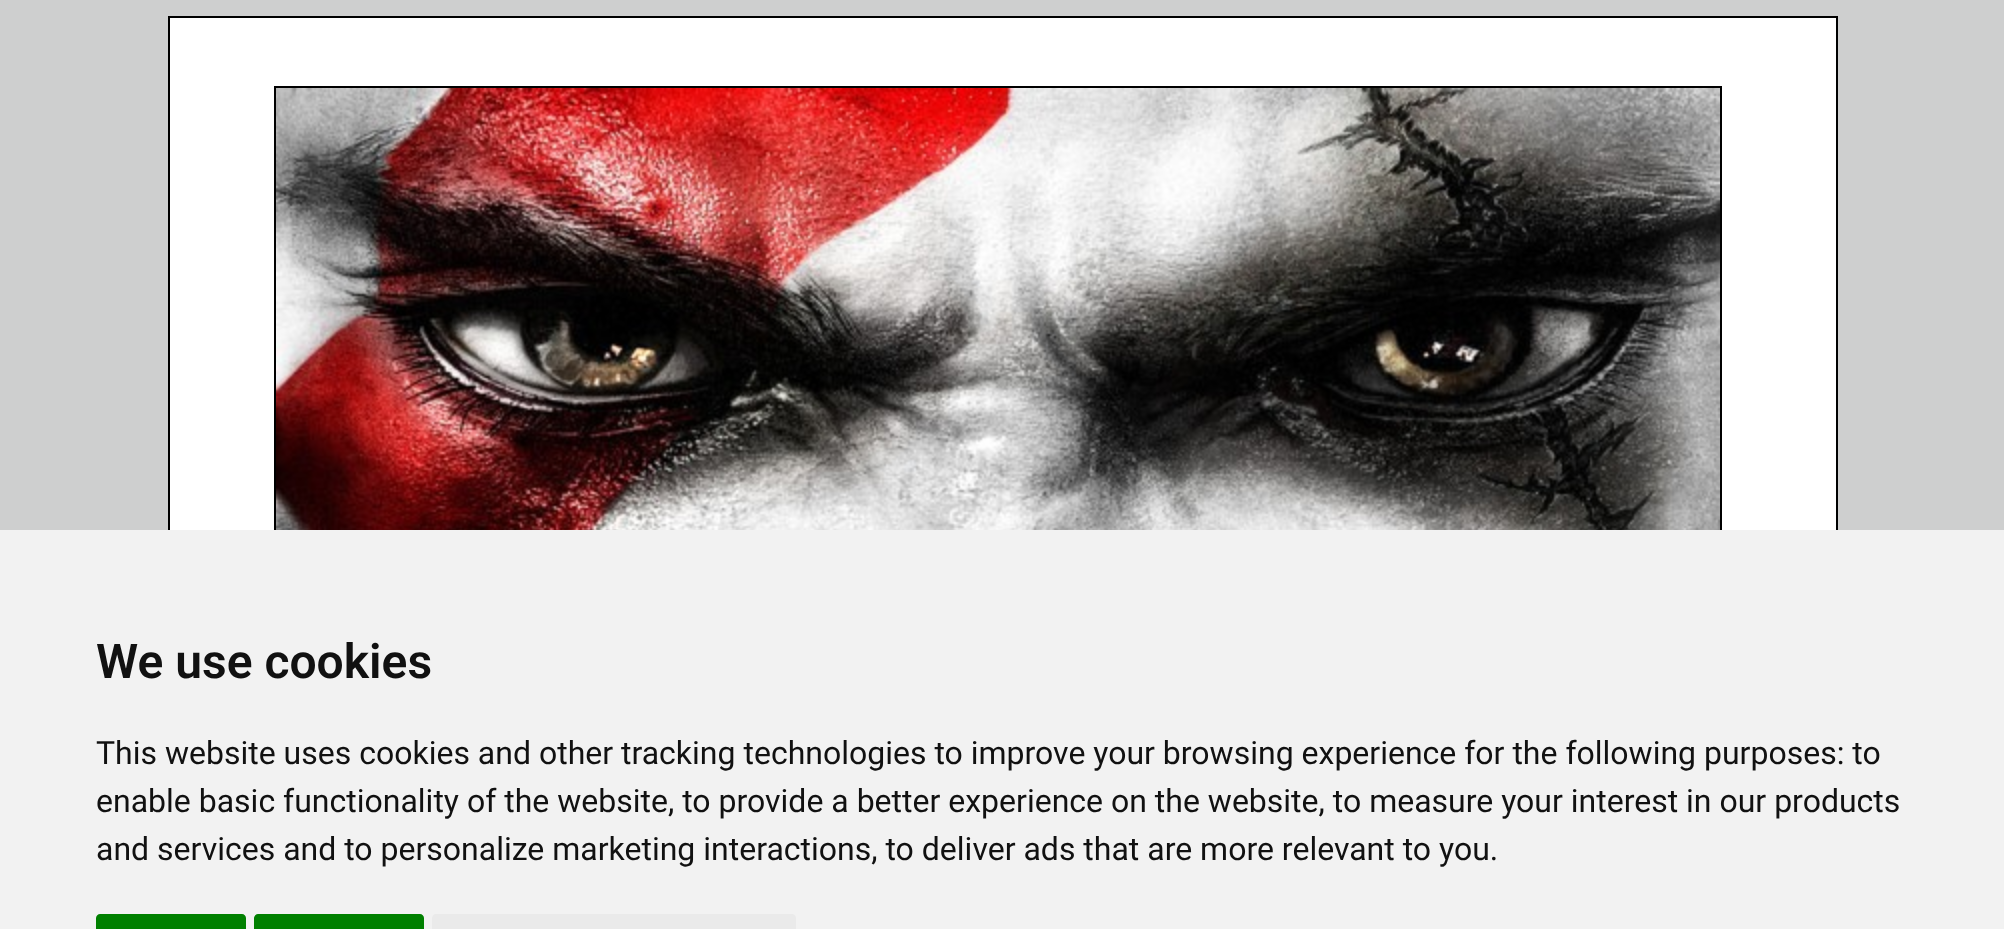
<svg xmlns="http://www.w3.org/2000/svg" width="2004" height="929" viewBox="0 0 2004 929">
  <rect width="100%" height="100%" fill="#cecfcf"/>
  <rect x="168" y="16" width="1670" height="514" fill="#000000"/>
  <rect x="170" y="18" width="1666" height="512" fill="#ffffff"/>
  <rect x="275" y="87" width="1446" height="502" fill="none" stroke="#000000" stroke-width="2"/>
  <image x="276" y="88" width="1444" height="442" href="img1.png"/>
  <rect x="0" y="530" width="2004" height="399" fill="#f2f2f2"/>
  <text x="96" y="678" font-family="Roboto" font-size="48" font-weight="600" fill="#111111">We use cookies</text>
  <text x="96" y="764" font-family="Roboto" font-size="32" fill="#111111">This website uses cookies and other tracking technologies to improve your browsing experience for the following purposes: to</text>
  <text x="96" y="812" font-family="Roboto" font-size="32" fill="#111111">enable basic functionality of the website, to provide a better experience on the website, to measure your interest in our products</text>
  <text x="96" y="860" font-family="Roboto" font-size="32" fill="#111111">and services and to personalize marketing interactions, to deliver ads that are more relevant to you.</text>
  <path d="M100 914H242C244 914 246 916 246 918V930H96V918C96 916 98 914 100 914Z" fill="#008000"/>
  <path d="M258 914H420C422 914 424 916 424 918V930H254V918C254 916 256 914 258 914Z" fill="#008000"/>
  <path d="M436 914H792C794 914 796 916 796 918V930H432V918C432 916 434 914 436 914Z" fill="#eaeaea"/>
</svg>
